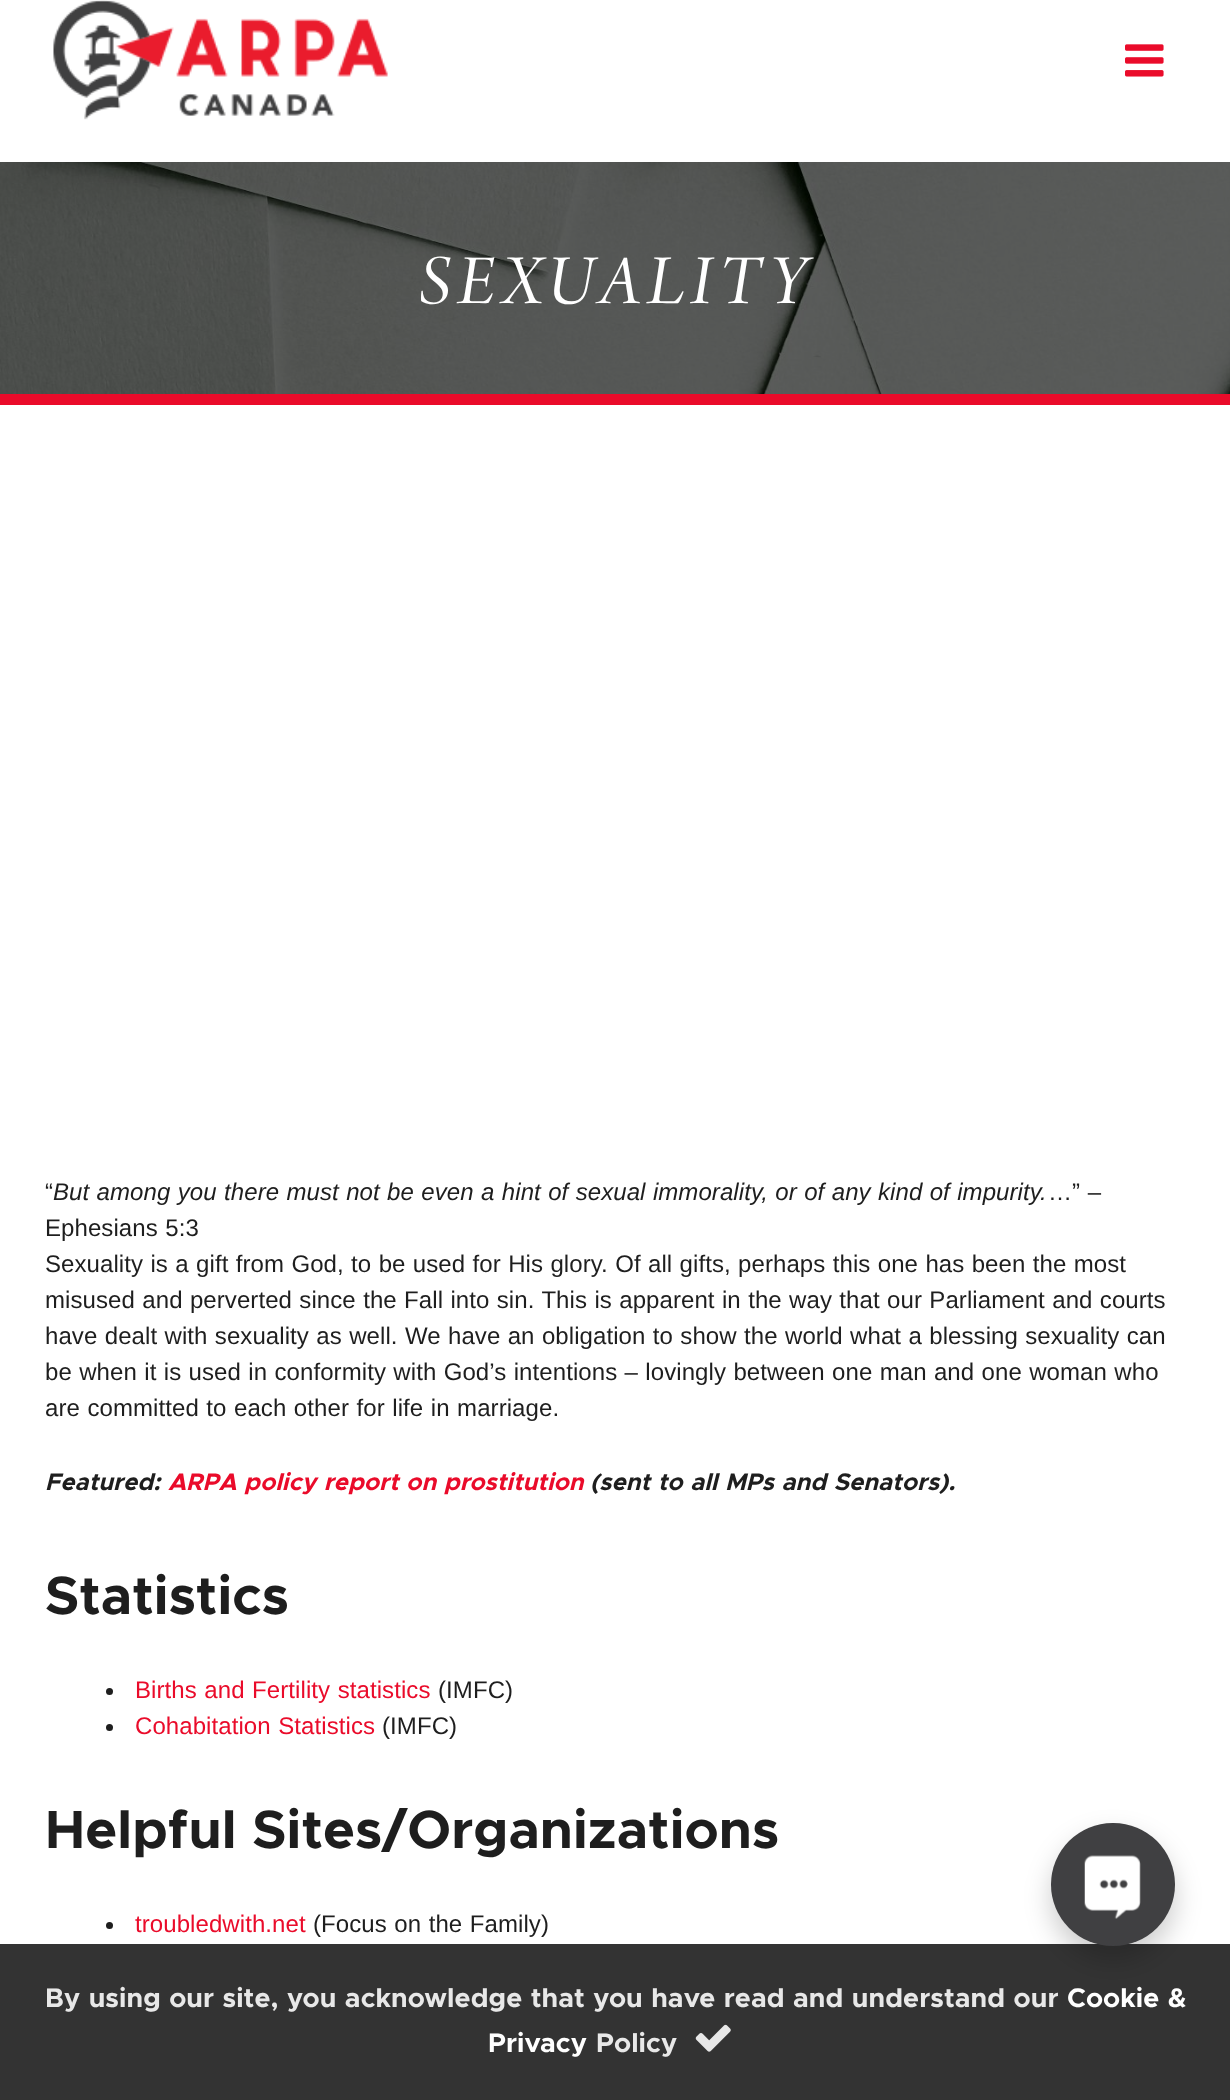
<svg xmlns="http://www.w3.org/2000/svg" width="1230" height="2100" viewBox="0 0 1230 2100">
  <defs>
    <filter id="blur1" x="-50%" y="-200%" width="200%" height="500%"><feGaussianBlur stdDeviation="13.5"/></filter>
  </defs>
  <rect width="100%" height="100%" fill="#ffffff"/>
  <image x="53" y="0" width="335" height="120" href="img1.png"/>
  <image x="1125" y="44" width="39" height="33" href="img2.png"/>
  <image x="0" y="162" width="1230" height="232" href="img3.png"/>
  <text x="419" y="303" font-family="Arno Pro" font-size="74.25" font-style="italic" letter-spacing="6.75" fill="#ffffff">SEXUALITY</text>
  <rect x="0" y="394" width="1230" height="11" fill="#ea0b2a"/>
  <text x="45" y="1200" font-family="Liberation Sans" font-size="24" letter-spacing="0.08" fill="#1e1e1e">“</text>
  <text x="53" y="1200" word-spacing="0.6" font-family="Liberation Sans" font-size="24" font-style="italic" letter-spacing="0.08" fill="#1e1e1e">But among you there must not be even a hint of sexual immorality, or of any kind of impurity.</text>
  <text x="1048" y="1200" word-spacing="0.75" font-family="Liberation Sans" font-size="24" letter-spacing="0.08" fill="#1e1e1e">…” –</text>
  <text x="45" y="1236" word-spacing="0.75" font-family="Liberation Sans" font-size="24" letter-spacing="0.08" fill="#1e1e1e">Ephesians 5:3</text>
  <text x="45" y="1272" word-spacing="0.6" font-family="Liberation Sans" font-size="24" letter-spacing="0.08" fill="#1e1e1e">Sexuality is a gift from God, to be used for His glory. Of all gifts, perhaps this one has been the most</text>
  <text x="45" y="1308" word-spacing="0.6" font-family="Liberation Sans" font-size="24" letter-spacing="0.08" fill="#1e1e1e">misused and perverted since the Fall into sin. This is apparent in the way that our Parliament and courts</text>
  <text x="45" y="1344" word-spacing="0.6" font-family="Liberation Sans" font-size="24" letter-spacing="0.08" fill="#1e1e1e">have dealt with sexuality as well. We have an obligation to show the world what a blessing sexuality can</text>
  <text x="45" y="1380" word-spacing="0.6" font-family="Liberation Sans" font-size="24" letter-spacing="0.08" fill="#1e1e1e">be when it is used in conformity with God’s intentions – lovingly between one man and one woman who</text>
  <text x="45" y="1416" word-spacing="0.75" font-family="Liberation Sans" font-size="24" letter-spacing="0.08" fill="#1e1e1e">are committed to each other for life in marriage.</text>
  <text x="45" y="1490" font-family="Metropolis" font-size="24" font-weight="bold" font-style="italic" letter-spacing="0.08" fill="#1e1e1e">Featured:</text>
  <text x="168" y="1490" word-spacing="0.75" font-family="Metropolis" font-size="24" font-weight="bold" font-style="italic" letter-spacing="0.08" fill="#ea0b2a">ARPA policy report on prostitution</text>
  <text x="590" y="1490" word-spacing="0.75" font-family="Metropolis" font-size="24" font-weight="bold" font-style="italic" letter-spacing="0.08" fill="#1e1e1e">(sent to all MPs and Senators).</text>
  <text x="45" y="1614" font-family="Metropolis" font-size="54" font-weight="bold" letter-spacing="0.08" fill="#1e1e1e">Statistics</text>
  <circle cx="109.5" cy="1691.5" r="3.5" fill="#1e1e1e"/>
  <text x="135" y="1698" word-spacing="0.75" font-family="Liberation Sans" font-size="24" letter-spacing="0.08" fill="#ea0b2a">Births and Fertility statistics</text>
  <text x="438" y="1698" font-family="Liberation Sans" font-size="24" letter-spacing="0.08" fill="#1e1e1e">(IMFC)</text>
  <circle cx="109.5" cy="1727.5" r="3.5" fill="#1e1e1e"/>
  <text x="135" y="1734" word-spacing="0.75" font-family="Liberation Sans" font-size="24" letter-spacing="0.08" fill="#ea0b2a">Cohabitation Statistics</text>
  <text x="382" y="1734" font-family="Liberation Sans" font-size="24" letter-spacing="0.08" fill="#1e1e1e">(IMFC)</text>
  <text x="45" y="1848" word-spacing="0.75" font-family="Metropolis" font-size="54" font-weight="bold" letter-spacing="0.08" fill="#1e1e1e">Helpful Sites/Organizations</text>
  <circle cx="109.5" cy="1925.5" r="3.5" fill="#1e1e1e"/>
  <text x="135" y="1932" font-family="Liberation Sans" font-size="24" letter-spacing="0.08" fill="#ea0b2a">troubledwith.net</text>
  <text x="313" y="1932" word-spacing="0.75" font-family="Liberation Sans" font-size="24" letter-spacing="0.08" fill="#1e1e1e">(Focus on the Family)</text>
  <rect x="0" y="1944" width="1230" height="156" fill="#333333"/>
  <rect x="1051" y="1836" width="124" height="124" rx="62" fill="#000000" fill-opacity="0.2" filter="url(#blur1)"/>
  <rect x="1051" y="1823" width="124" height="123" rx="61.5" fill="#404042"/>
  <image x="1084" y="1855" width="57" height="64" href="img4.png"/>
  <text x="45" y="2007" word-spacing="0.75" font-family="Metropolis" font-size="27" font-weight="bold" letter-spacing="0.1" fill="#e8e8e8">By using our site, you acknowledge that you have read and understand our</text>
  <text x="1067" y="2007" word-spacing="1" font-family="Metropolis" font-size="27" font-weight="bold" letter-spacing="0.1" fill="#ffffff">Cookie &amp;</text>
  <text x="488" y="2052" font-family="Metropolis" font-size="27" font-weight="bold" letter-spacing="0.1" fill="#ffffff">Privacy</text>
  <text x="596" y="2052" font-family="Metropolis" font-size="27" font-weight="bold" letter-spacing="0.1" fill="#e8e8e8">Policy</text>
  <image x="695" y="2024" width="36" height="28" href="img5.png"/>
</svg>
